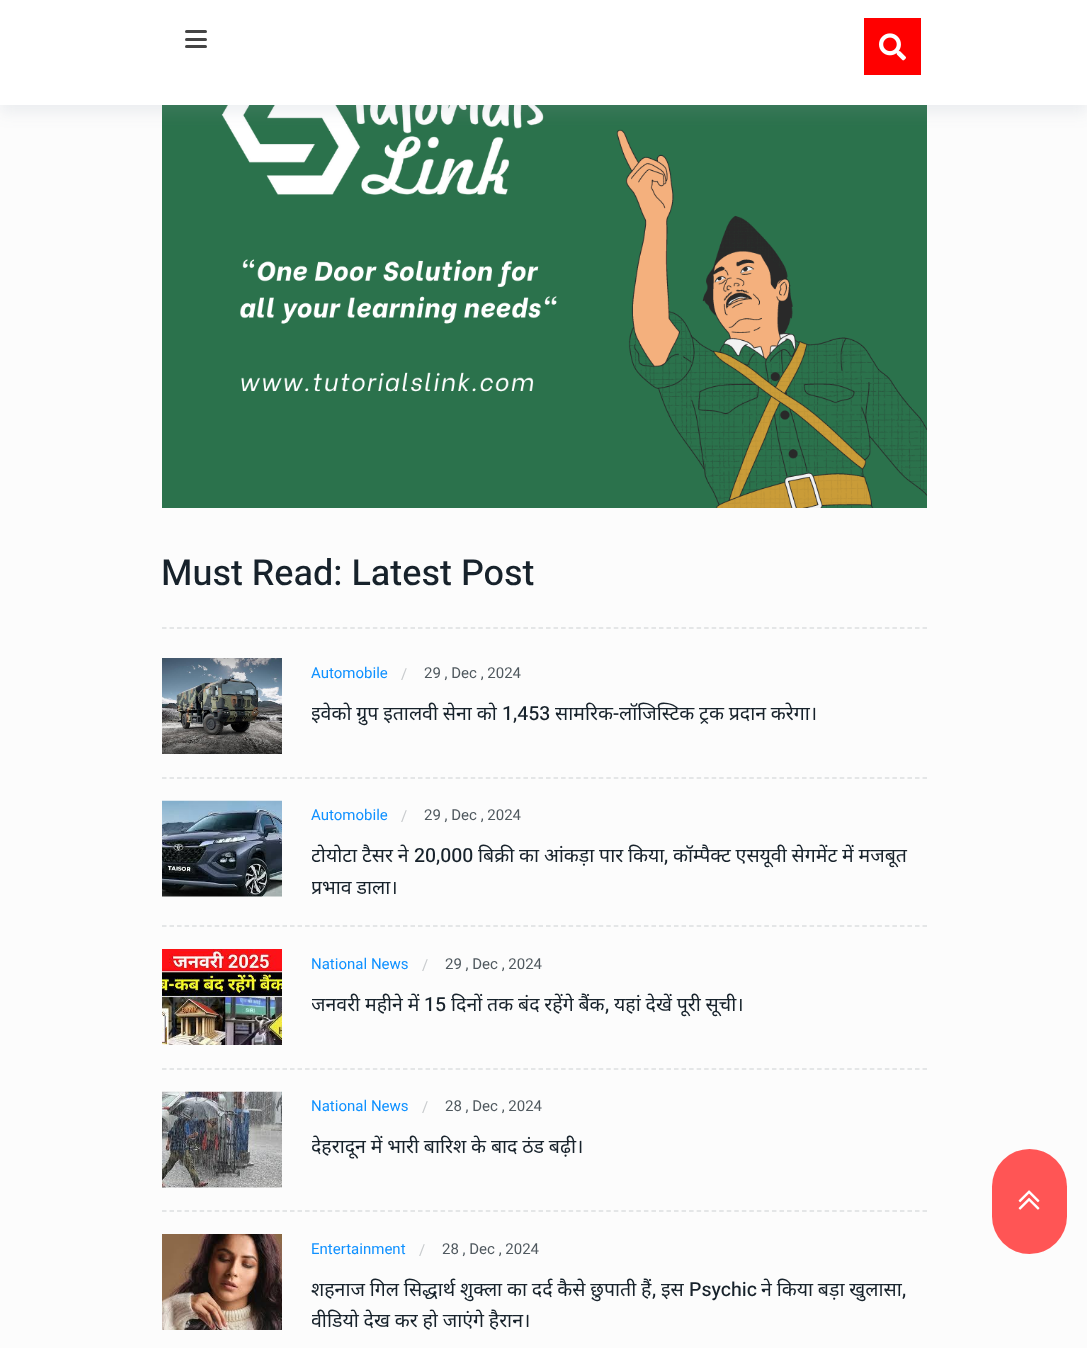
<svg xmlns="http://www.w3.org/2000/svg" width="1087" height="1348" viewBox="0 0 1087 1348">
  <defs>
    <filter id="blur1" x="-50%" y="-200%" width="200%" height="500%"><feGaussianBlur stdDeviation="7.5"/></filter>
    <clipPath id="clip1"><rect x="312" y="698" width="615" height="31"/></clipPath>
    <clipPath id="clip2"><rect x="312" y="840" width="615" height="63"/></clipPath>
    <clipPath id="clip3"><rect x="312" y="989" width="615" height="31"/></clipPath>
    <clipPath id="clip4"><rect x="312" y="1131" width="615" height="32"/></clipPath>
    <clipPath id="clip5"><rect x="312" y="1274" width="615" height="63"/></clipPath>
  </defs>
  <rect width="100%" height="100%" fill="#fcfcfc"/>
  <image x="162" y="105" width="765" height="403" href="img3.png"/>
  <rect x="0" y="8" width="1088" height="105" fill="#8a9ba5" fill-opacity="0.15" filter="url(#blur1)"/>
  <rect x="0" y="0" width="1087" height="105" fill="#ffffff"/>
  <rect x="185" y="30" width="22" height="3" rx="1.5" fill="#444444"/>
  <rect x="185" y="38" width="22" height="3" rx="1.5" fill="#444444"/>
  <rect x="185" y="45" width="22" height="3" rx="1.5" fill="#444444"/>
  <rect x="864" y="18" width="57" height="57" fill="#ff0000"/>
  <image x="879" y="33" width="27" height="28" href="img1.png"/>
  <rect x="992" y="1149" width="75" height="105" rx="37.5" fill="#ff5555"/>
  <image x="1018" y="1190" width="22" height="20" href="img2.png"/>
  <text x="161" y="585" font-family="Heebo" font-size="36" font-weight="500" fill="#17222b">Must Read: Latest Post</text>
  <path d="M162 628H927" fill="none" stroke="#dcdedf" stroke-width="1.5" stroke-dasharray="4.5 3.03"/>
  <image x="162" y="658" width="120" height="96" href="img4.png"/>
  <text x="311" y="678" font-family="Heebo" font-size="15" fill="#1091ff">Automobile</text>
  <text x="401" y="679" font-family="Heebo" font-size="15" fill="#c8cbcd">/</text>
  <text x="424" y="678" font-family="Heebo" font-size="15" fill="#50595f">29 , Dec , 2024</text>
  <g clip-path="url(#clip1)">
    <text x="311" y="720" word-spacing="-0.25" font-family="Noto Sans" font-size="19.5" fill="#17222b">इवेको ग्रुप इतालवी सेना को</text>
  </g>
  <text x="502" y="720" font-family="Heebo" font-size="19.5" font-weight="500" fill="#17222b">1,453</text>
  <text x="555" y="720" font-family="Noto Sans" font-size="19.5" fill="#17222b">सामरिक</text>
  <text x="613" y="720" font-family="Heebo" font-size="19.5" font-weight="500" fill="#17222b">-</text>
  <text x="619" y="720" word-spacing="-0.25" font-family="Noto Sans" font-size="19.5" fill="#17222b">लॉजिस्टिक ट्रक प्रदान करेगा।</text>
  <path d="M162 778H927" fill="none" stroke="#dcdedf" stroke-width="1.5" stroke-dasharray="4.5 3.03"/>
  <image x="162" y="800" width="120" height="97" href="img5.png"/>
  <text x="311" y="820" font-family="Heebo" font-size="15" fill="#1091ff">Automobile</text>
  <text x="401" y="821" font-family="Heebo" font-size="15" fill="#c8cbcd">/</text>
  <text x="424" y="820" font-family="Heebo" font-size="15" fill="#50595f">29 , Dec , 2024</text>
  <g clip-path="url(#clip2)">
    <text x="311" y="862" word-spacing="-0.25" font-family="Noto Sans" font-size="19.5" fill="#17222b">टोयोटा टैसर ने</text>
  </g>
  <text x="414" y="862" font-family="Heebo" font-size="19.5" font-weight="500" fill="#17222b">20,000</text>
  <text x="478" y="862" word-spacing="-0.25" font-family="Noto Sans" font-size="19.5" fill="#17222b">बिक्री का आंकड़ा पार किया</text>
  <text x="664" y="862" font-family="Heebo" font-size="19.5" font-weight="500" fill="#17222b">,</text>
  <text x="673" y="862" word-spacing="-0.25" font-family="Noto Sans" font-size="19.5" fill="#17222b">कॉम्पैक्ट एसयूवी सेगमेंट में मजबूत</text>
  <g clip-path="url(#clip2)">
    <text x="311" y="894" word-spacing="-0.25" font-family="Noto Sans" font-size="19.5" fill="#17222b">प्रभाव डाला।</text>
  </g>
  <path d="M162 926H927" fill="none" stroke="#dcdedf" stroke-width="1.5" stroke-dasharray="4.5 3.03"/>
  <image x="162" y="949" width="120" height="96" href="img6.png"/>
  <text x="311" y="969" font-family="Heebo" font-size="15" fill="#1091ff">National News</text>
  <text x="422" y="970" font-family="Heebo" font-size="15" fill="#c8cbcd">/</text>
  <text x="445" y="969" font-family="Heebo" font-size="15" fill="#50595f">29 , Dec , 2024</text>
  <g clip-path="url(#clip3)">
    <text x="311" y="1011" word-spacing="-0.25" font-family="Noto Sans" font-size="19.5" fill="#17222b">जनवरी महीने में</text>
  </g>
  <text x="424" y="1011" font-family="Heebo" font-size="19.5" font-weight="500" fill="#17222b">15</text>
  <text x="451" y="1011" word-spacing="-0.25" font-family="Noto Sans" font-size="19.5" fill="#17222b">दिनों तक बंद रहेंगे बैंक</text>
  <text x="605" y="1011" font-family="Heebo" font-size="19.5" font-weight="500" fill="#17222b">,</text>
  <text x="614" y="1011" word-spacing="-0.25" font-family="Noto Sans" font-size="19.5" fill="#17222b">यहां देखें पूरी सूची।</text>
  <path d="M162 1069H927" fill="none" stroke="#dcdedf" stroke-width="1.5" stroke-dasharray="4.5 3.03"/>
  <image x="162" y="1091" width="120" height="97" href="img7.png"/>
  <text x="311" y="1111" font-family="Heebo" font-size="15" fill="#1091ff">National News</text>
  <text x="422" y="1112" font-family="Heebo" font-size="15" fill="#c8cbcd">/</text>
  <text x="445" y="1111" font-family="Heebo" font-size="15" fill="#50595f">28 , Dec , 2024</text>
  <g clip-path="url(#clip4)">
    <text x="311" y="1153" word-spacing="-0.25" font-family="Noto Sans" font-size="19.5" fill="#17222b">देहरादून में भारी बारिश के बाद ठंड बढ़ी।</text>
  </g>
  <path d="M162 1211H927" fill="none" stroke="#dcdedf" stroke-width="1.5" stroke-dasharray="4.5 3.03"/>
  <image x="162" y="1234" width="120" height="96" href="img8.png"/>
  <text x="311" y="1254" font-family="Heebo" font-size="15" fill="#1091ff">Entertainment</text>
  <text x="419" y="1255" font-family="Heebo" font-size="15" fill="#c8cbcd">/</text>
  <text x="442" y="1254" font-family="Heebo" font-size="15" fill="#50595f">28 , Dec , 2024</text>
  <text x="311" y="1296" word-spacing="-0.25" font-family="Noto Sans" font-size="19.5" fill="#17222b">शहनाज गिल सिद्धार्थ शुक्ला का दर्द कैसे छुपाती हैं</text>
  <text x="652" y="1296" font-family="Heebo" font-size="19.5" font-weight="500" fill="#17222b">,</text>
  <text x="661" y="1296" font-family="Noto Sans" font-size="19.5" fill="#17222b">इस</text>
  <text x="689" y="1296" font-family="Heebo" font-size="19.5" font-weight="500" fill="#17222b">Psychic</text>
  <text x="761" y="1296" word-spacing="-0.25" font-family="Noto Sans" font-size="19.5" fill="#17222b">ने किया बड़ा खुलासा</text>
  <text x="902" y="1296" font-family="Heebo" font-size="19.5" font-weight="500" fill="#17222b">,</text>
  <g clip-path="url(#clip5)">
    <text x="311" y="1327" word-spacing="-0.25" font-family="Noto Sans" font-size="19.5" fill="#17222b">वीडियो देख कर हो जाएंगे हैरान।</text>
  </g>
</svg>
